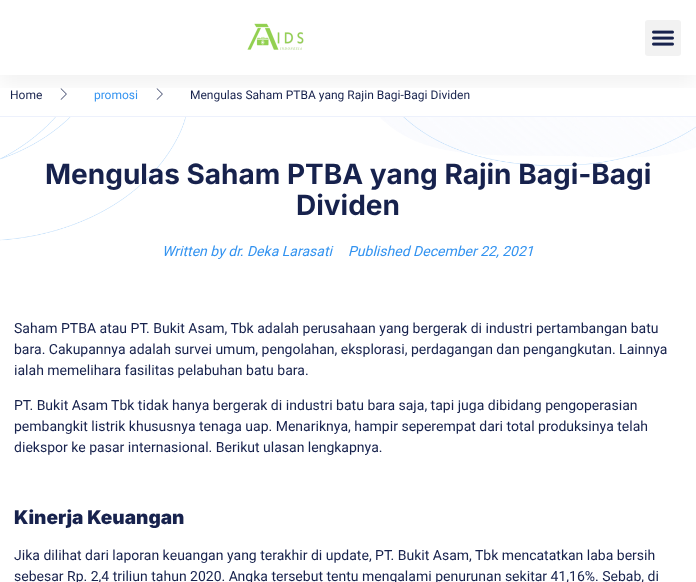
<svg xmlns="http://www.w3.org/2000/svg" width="696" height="582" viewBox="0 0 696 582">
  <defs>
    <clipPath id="clip1"><rect x="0" y="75" width="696" height="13"/></clipPath>
    <filter id="blur1" x="-50%" y="-200%" width="200%" height="500%"><feGaussianBlur stdDeviation="10"/></filter>
  </defs>
  <rect width="100%" height="100%" fill="#ffffff"/>
  <image x="60" y="88" width="7" height="12" href="img3.png"/>
  <image x="156" y="88" width="7" height="12" href="img3.png"/>
  <g clip-path="url(#clip1)">
    <rect x="0" y="10" width="696" height="75" fill="#000000" fill-opacity="0.05" filter="url(#blur1)"/>
  </g>
  <image x="247" y="23" width="57" height="27" href="img1.png"/>
  <rect x="645" y="20" width="36" height="36" rx="3" fill="#f2f2f2"/>
  <image x="652" y="30" width="22" height="16" href="img2.png"/>
  <rect x="0" y="116" width="696" height="1" fill="#edf1fc"/>
  <text x="10" y="99" font-family="Heebo" font-size="12" fill="#17224d">Home</text>
  <text x="94" y="99" font-family="Heebo" font-size="12" fill="#3393f0">promosi</text>
  <text x="190" y="99" font-family="Heebo" font-size="12" fill="#17224d">Mengulas Saham PTBA yang Rajin Bagi-Bagi Dividen</text>
  <image x="0" y="117" width="696" height="124" href="img4.png"/>
  <text x="45" y="184" font-family="Inter" font-size="28" font-weight="bold" fill="#17224d">Mengulas Saham PTBA yang Rajin Bagi-Bagi</text>
  <text x="296" y="215" font-family="Inter" font-size="28" font-weight="bold" fill="#17224d">Dividen</text>
  <text x="162" y="256" font-family="Heebo" font-size="14" font-style="italic" fill="#3393f0">Written by dr. Deka Larasati</text>
  <text x="348" y="256" font-family="Heebo" font-size="14" font-style="italic" fill="#3393f0">Published December 22, 2021</text>
  <text x="14" y="333" font-family="Heebo" font-size="14" fill="#17224d">Saham PTBA atau PT. Bukit Asam, Tbk adalah perusahaan yang bergerak di industri pertambangan batu</text>
  <text x="14" y="354" font-family="Heebo" font-size="14" fill="#17224d">bara. Cakupannya adalah survei umum, pengolahan, eksplorasi, perdagangan dan pengangkutan. Lainnya</text>
  <text x="14" y="375" font-family="Heebo" font-size="14" fill="#17224d">ialah memelihara fasilitas pelabuhan batu bara.</text>
  <text x="14" y="410" font-family="Heebo" font-size="14" fill="#17224d">PT. Bukit Asam Tbk tidak hanya bergerak di industri batu bara saja, tapi juga dibidang pengoperasian</text>
  <text x="14" y="431" font-family="Heebo" font-size="14" fill="#17224d">pembangkit listrik khususnya tenaga uap. Menariknya, hampir seperempat dari total produksinya telah</text>
  <text x="14" y="452" font-family="Heebo" font-size="14" fill="#17224d">diekspor ke pasar internasional. Berikut ulasan lengkapnya.</text>
  <text x="14" y="524" font-family="Inter" font-size="19" font-weight="900" fill="#17224d">Kinerja Keuangan</text>
  <text x="14" y="560" font-family="Heebo" font-size="14" fill="#17224d">Jika dilihat dari laporan keuangan yang terakhir di update, PT. Bukit Asam, Tbk mencatatkan laba bersih</text>
  <text x="14" y="581" font-family="Heebo" font-size="14" fill="#17224d">sebesar Rp. 2,4 triliun tahun 2020. Angka tersebut tentu mengalami penurunan sekitar 41,16%. Sebab, di</text>
</svg>
